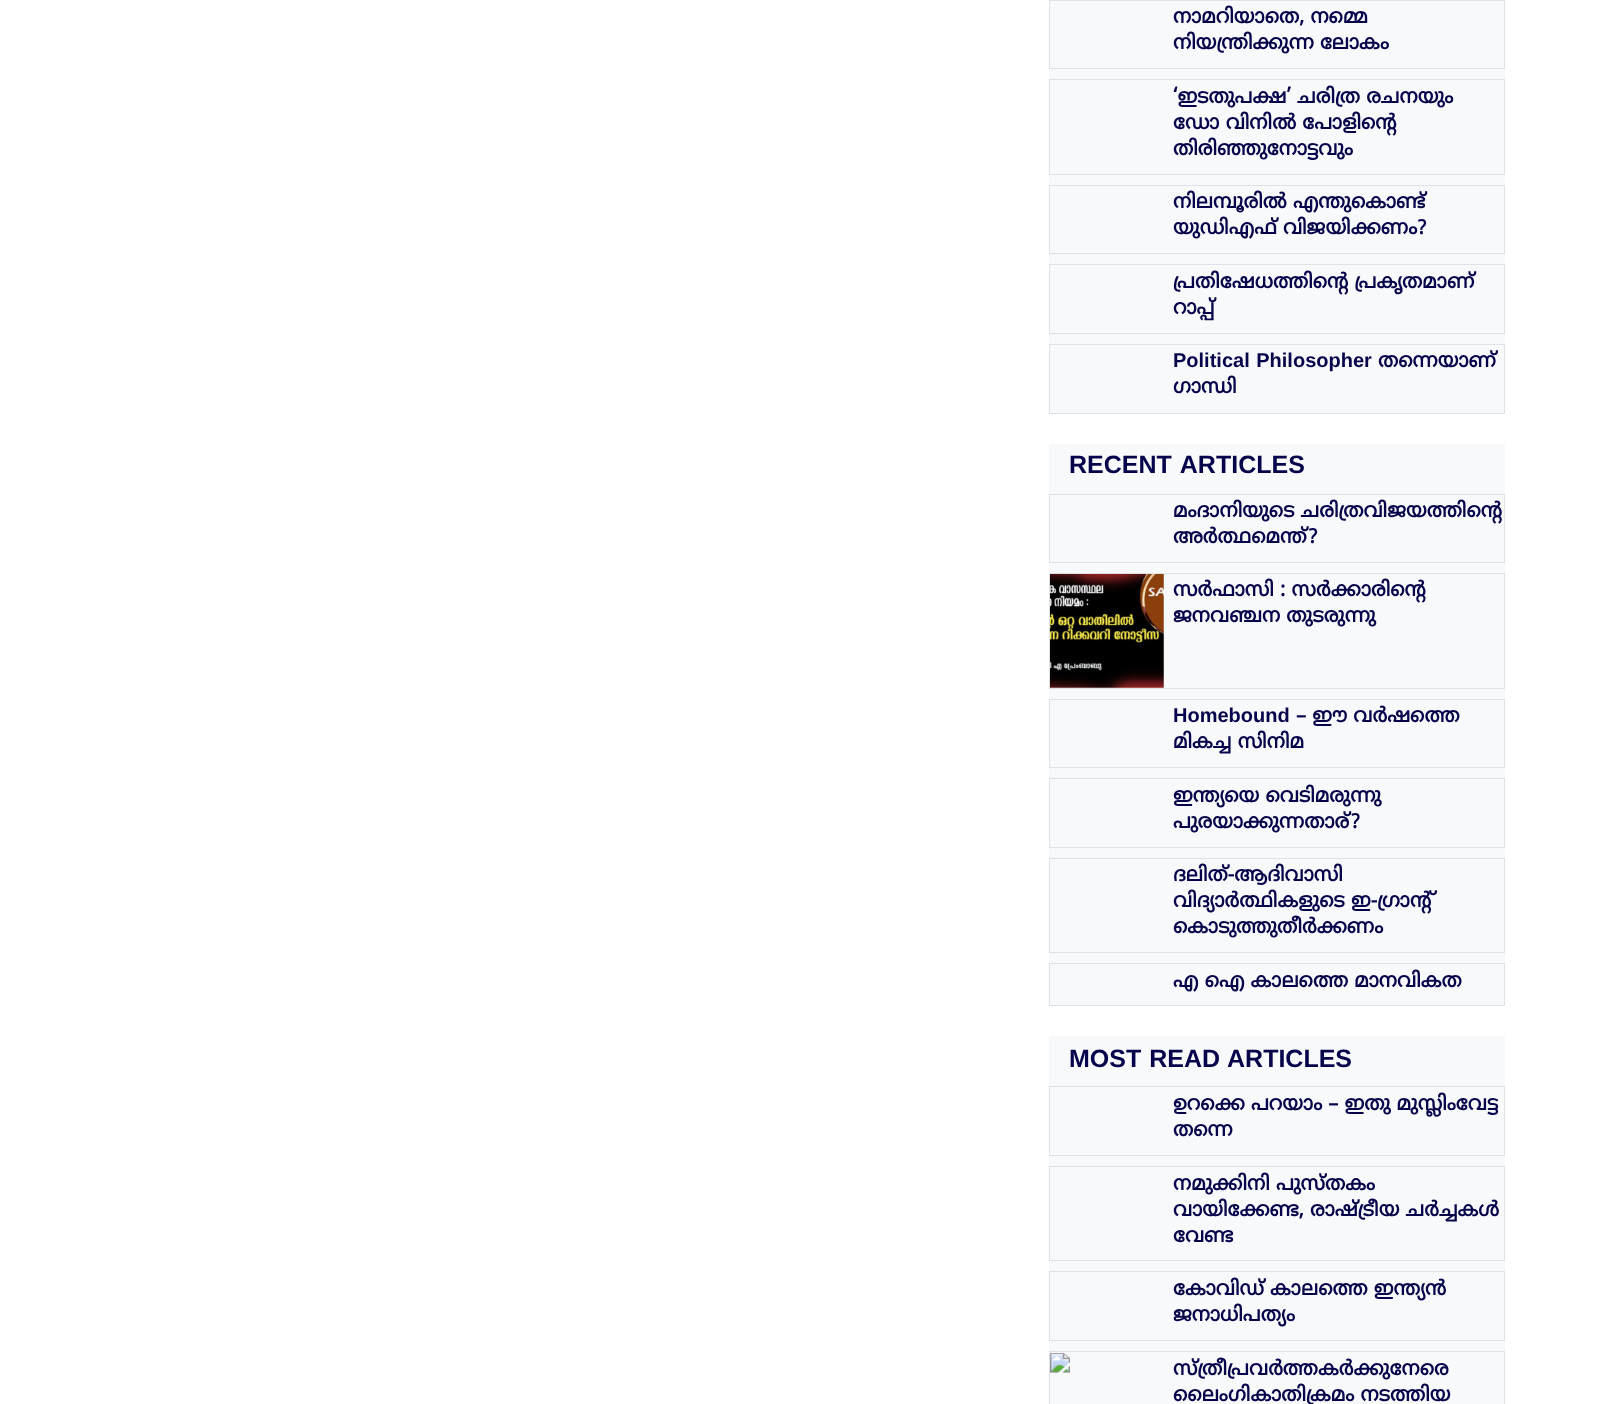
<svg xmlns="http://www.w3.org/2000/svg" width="1622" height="1404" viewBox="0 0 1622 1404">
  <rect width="100%" height="100%" fill="#ffffff"/>
  <rect x="1049" y="1" width="456" height="412" fill="#f8f9fa"/>
  <rect x="1049.5" y="0.5" width="455" height="68" fill="none" stroke="#dee2e6"/>
  <text x="1173" y="23" font-family="Noto Sans Malayalam" font-size="20" font-weight="bold" fill="#06044b">നാമറിയാതെ, നമ്മെ</text>
  <text x="1173" y="49" font-family="Noto Sans Malayalam" font-size="20" font-weight="bold" fill="#06044b">നിയന്ത്രിക്കുന്ന ലോകം</text>
  <rect x="1049.5" y="79.5" width="455" height="95" fill="none" stroke="#dee2e6"/>
  <text x="1173" y="103" font-family="Noto Sans Malayalam" font-size="20" font-weight="bold" fill="#06044b">‘ഇടതുപക്ഷ’ ചരിത്ര രചനയും</text>
  <text x="1173" y="129" font-family="Noto Sans Malayalam" font-size="20" font-weight="bold" fill="#06044b">ഡോ വിനില്‍ പോളിന്റെ</text>
  <text x="1173" y="155" font-family="Noto Sans Malayalam" font-size="20" font-weight="bold" fill="#06044b">തിരിഞ്ഞുനോട്ടവും</text>
  <rect x="1049.5" y="185.5" width="455" height="68" fill="none" stroke="#dee2e6"/>
  <text x="1173" y="208" font-family="Noto Sans Malayalam" font-size="20" font-weight="bold" fill="#06044b">നിലമ്പൂരില്‍ എന്തുകൊണ്ട്</text>
  <text x="1173" y="234" font-family="Noto Sans Malayalam" font-size="20" font-weight="bold" fill="#06044b">യുഡിഎഫ് വിജയിക്കണം?</text>
  <rect x="1049.5" y="264.5" width="455" height="69" fill="none" stroke="#dee2e6"/>
  <text x="1173" y="288" font-family="Noto Sans Malayalam" font-size="20" font-weight="bold" fill="#06044b">പ്രതിഷേധത്തിന്റെ പ്രകൃതമാണ്</text>
  <text x="1173" y="314" font-family="Noto Sans Malayalam" font-size="20" font-weight="bold" fill="#06044b">റാപ്പ്</text>
  <rect x="1049.5" y="344.5" width="455" height="69" fill="none" stroke="#dee2e6"/>
  <text x="1173" y="367" word-spacing="1" font-family="Liberation Sans" font-size="20" font-weight="bold" fill="#06044b">Political Philosopher</text>
  <text x="1378" y="367" font-family="Noto Sans Malayalam" font-size="20" font-weight="bold" fill="#06044b">തന്നെയാണ്</text>
  <text x="1173" y="393" font-family="Noto Sans Malayalam" font-size="20" font-weight="bold" fill="#06044b">ഗാന്ധി</text>
  <rect x="1049" y="444" width="456" height="561" fill="#f8f9fa"/>
  <text x="1069" y="473" word-spacing="2" font-family="Liberation Sans" font-size="25" font-weight="bold" fill="#06044b">RECENT ARTICLES</text>
  <rect x="1049.5" y="494.5" width="455" height="68" fill="none" stroke="#dee2e6"/>
  <text x="1173" y="517" font-family="Noto Sans Malayalam" font-size="20" font-weight="bold" fill="#06044b">മംദാനിയുടെ ചരിത്രവിജയത്തിന്റെ</text>
  <text x="1173" y="543" font-family="Noto Sans Malayalam" font-size="20" font-weight="bold" fill="#06044b">അര്‍ത്ഥമെന്ത്?</text>
  <rect x="1049.5" y="573.5" width="455" height="115" fill="none" stroke="#dee2e6"/>
  <image x="1050" y="574" width="114" height="114" href="img1.png"/>
  <text x="1173" y="596" font-family="Noto Sans Malayalam" font-size="20" font-weight="bold" fill="#06044b">സര്‍ഫാസി : സര്‍ക്കാരിന്റെ</text>
  <text x="1173" y="622" font-family="Noto Sans Malayalam" font-size="20" font-weight="bold" fill="#06044b">ജനവഞ്ചന തുടരുന്നു</text>
  <rect x="1049.5" y="699.5" width="455" height="68" fill="none" stroke="#dee2e6"/>
  <text x="1173" y="722" font-family="Liberation Sans" font-size="20" font-weight="bold" fill="#06044b">Homebound</text>
  <text x="1296" y="722" font-family="Noto Sans Malayalam" font-size="20" font-weight="bold" fill="#06044b">– ഈ വര്‍ഷത്തെ</text>
  <text x="1173" y="748" font-family="Noto Sans Malayalam" font-size="20" font-weight="bold" fill="#06044b">മികച്ച സിനിമ</text>
  <rect x="1049.5" y="778.5" width="455" height="69" fill="none" stroke="#dee2e6"/>
  <text x="1173" y="802" font-family="Noto Sans Malayalam" font-size="20" font-weight="bold" fill="#06044b">ഇന്ത്യയെ വെടിമരുന്നു</text>
  <text x="1173" y="828" font-family="Noto Sans Malayalam" font-size="20" font-weight="bold" fill="#06044b">പുരയാക്കുന്നതാര്?</text>
  <rect x="1049.5" y="858.5" width="455" height="94" fill="none" stroke="#dee2e6"/>
  <text x="1173" y="881" font-family="Noto Sans Malayalam" font-size="20" font-weight="bold" fill="#06044b">ദലിത്-ആദിവാസി</text>
  <text x="1173" y="907" font-family="Noto Sans Malayalam" font-size="20" font-weight="bold" fill="#06044b">വിദ്യാര്‍ത്ഥികളുടെ ഇ-ഗ്രാന്റ്</text>
  <text x="1173" y="933" font-family="Noto Sans Malayalam" font-size="20" font-weight="bold" fill="#06044b">കൊടുത്തുതീര്‍ക്കണം</text>
  <rect x="1049.5" y="963.5" width="455" height="42" fill="none" stroke="#dee2e6"/>
  <text x="1173" y="987" font-family="Noto Sans Malayalam" font-size="20" font-weight="bold" fill="#06044b">എ ഐ കാലത്തെ മാനവികത</text>
  <rect x="1049" y="1036" width="456" height="368" fill="#f8f9fa"/>
  <text x="1069" y="1067" word-spacing="1" font-family="Liberation Sans" font-size="25" font-weight="bold" fill="#06044b">MOST READ ARTICLES</text>
  <rect x="1049.5" y="1086.5" width="455" height="69" fill="none" stroke="#dee2e6"/>
  <text x="1173" y="1110" font-family="Noto Sans Malayalam" font-size="20" font-weight="bold" fill="#06044b">ഉറക്കെ പറയാം – ഇതു മുസ്ലിംവേട്ട</text>
  <text x="1173" y="1136" font-family="Noto Sans Malayalam" font-size="20" font-weight="bold" fill="#06044b">തന്നെ</text>
  <rect x="1049.5" y="1166.5" width="455" height="94" fill="none" stroke="#dee2e6"/>
  <text x="1173" y="1190" font-family="Noto Sans Malayalam" font-size="20" font-weight="bold" fill="#06044b">നമുക്കിനി പുസ്തകം</text>
  <text x="1173" y="1216" font-family="Noto Sans Malayalam" font-size="20" font-weight="bold" fill="#06044b">വായിക്കേണ്ട, രാഷ്ട്രീയ ചര്‍ച്ചകള്‍</text>
  <text x="1173" y="1242" font-family="Noto Sans Malayalam" font-size="20" font-weight="bold" fill="#06044b">വേണ്ട</text>
  <rect x="1049.5" y="1271.5" width="455" height="69" fill="none" stroke="#dee2e6"/>
  <text x="1173" y="1295" font-family="Noto Sans Malayalam" font-size="20" font-weight="bold" fill="#06044b">കോവിഡ് കാലത്തെ ഇന്ത്യന്‍</text>
  <text x="1173" y="1321" font-family="Noto Sans Malayalam" font-size="20" font-weight="bold" fill="#06044b">ജനാധിപത്യം</text>
  <rect x="1049.5" y="1351.5" width="455" height="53" fill="none" stroke="#dee2e6"/>
  <image x="1050" y="1352" width="20" height="21" href="img2.png"/>
  <text x="1173" y="1375" font-family="Noto Sans Malayalam" font-size="20" font-weight="bold" fill="#06044b">സ്ത്രീപ്രവര്‍ത്തകര്‍ക്കുനേരെ</text>
  <text x="1173" y="1401" font-family="Noto Sans Malayalam" font-size="20" font-weight="bold" fill="#06044b">ലൈംഗികാതിക്രമം നടത്തിയ</text>
</svg>
